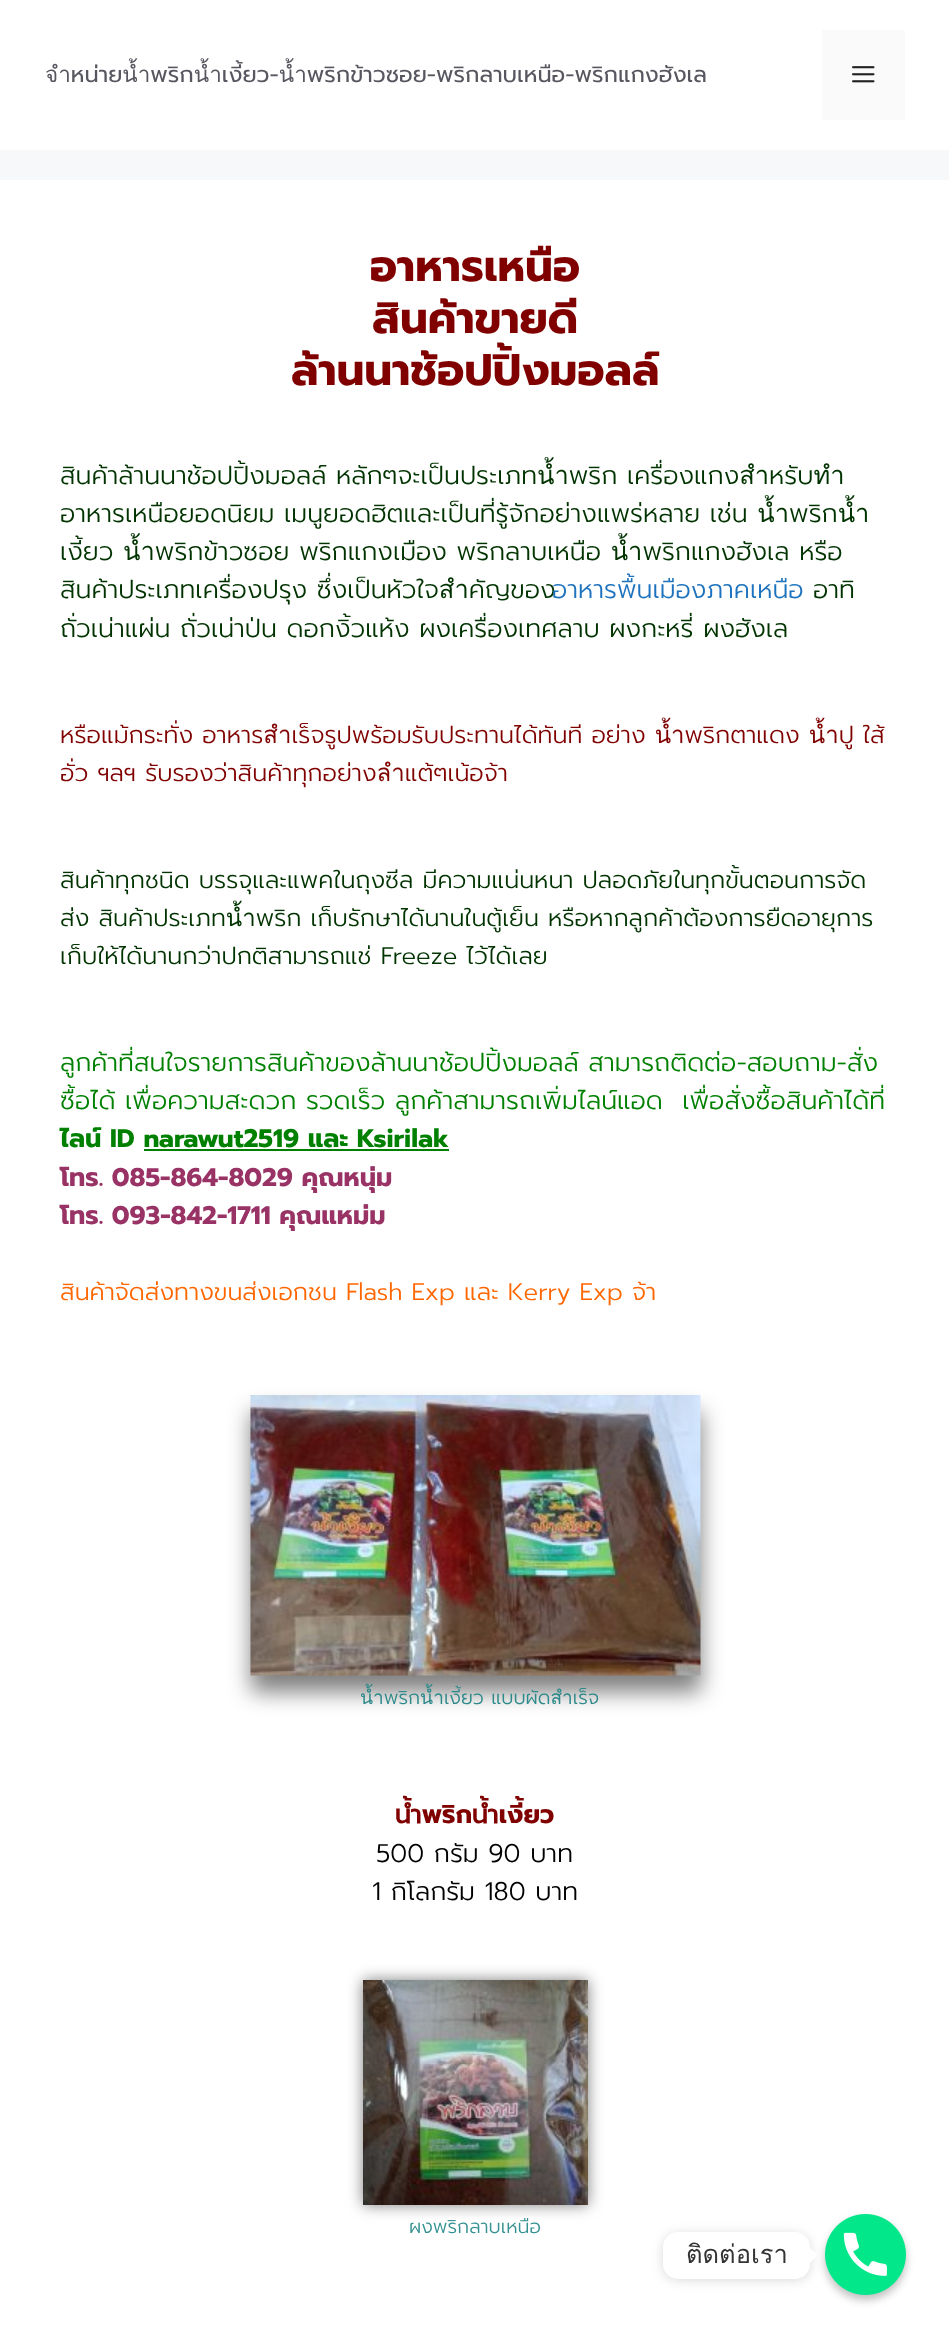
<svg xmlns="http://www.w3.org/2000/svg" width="949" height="2332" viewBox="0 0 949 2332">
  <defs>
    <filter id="blur1" x="-50%" y="-200%" width="200%" height="500%"><feGaussianBlur stdDeviation="11"/></filter>
    <filter id="blur2" x="-50%" y="-200%" width="200%" height="500%"><feGaussianBlur stdDeviation="7.5"/></filter>
    <filter id="blur3" x="-50%" y="-200%" width="200%" height="500%"><feGaussianBlur stdDeviation="4.5"/></filter>
    <filter id="blur4" x="-50%" y="-200%" width="200%" height="500%"><feGaussianBlur stdDeviation="6"/></filter>
  </defs>
  <rect width="100%" height="100%" fill="#f7f8f9"/>
  <rect x="0" y="0" width="949" height="150" fill="#ffffff"/>
  <text x="45" y="82" font-family="Prompt" font-size="22.5" fill="#575760">จำหน่ายน้ำพริกน้ำเงี้ยว-น้ำพริกข้าวซอย-พริกลาบเหนือ-พริกแกงฮังเล</text>
  <rect x="822" y="30" width="83" height="90" fill="#fafafa"/>
  <image x="852" y="66" width="23" height="17" href="img1.png"/>
  <rect x="0" y="180" width="949" height="2152" fill="#ffffff"/>
  <text x="370" y="281" font-family="Prompt" font-size="43.5" font-weight="bold" fill="#800000">อาหารเหนือ</text>
  <text x="372" y="333" font-family="Prompt" font-size="43.5" font-weight="bold" fill="#800000">สินค้าขายดี</text>
  <text x="291" y="385" font-family="Prompt" font-size="43.5" font-weight="bold" fill="#800000">ล้านนาช้อปปิ้งมอลล์</text>
  <text x="60" y="484" font-family="Prompt" font-size="25.5" font-weight="300" fill="#003300">สินค้าล้านนาช้อปปิ้งมอลล์ หลักๆจะเป็นประเภทน้ำพริก เครื่องแกงสำหรับทำ</text>
  <text x="60" y="522" font-family="Prompt" font-size="25.5" font-weight="300" fill="#003300">อาหารเหนือยอดนิยม เมนูยอดฮิตและเป็นที่รู้จักอย่างแพร่หลาย เช่น น้ำพริกน้ำ</text>
  <text x="60" y="560" font-family="Prompt" font-size="25.5" font-weight="300" fill="#003300">เงี้ยว น้ำพริกข้าวซอย พริกแกงเมือง พริกลาบเหนือ น้ำพริกแกงฮังเล หรือ</text>
  <text x="60" y="598" font-family="Prompt" font-size="25.5" font-weight="300" fill="#003300">สินค้าประเภทเครื่องปรุง ซึ่งเป็นหัวใจสำคัญของ</text>
  <text x="552" y="598" font-family="Prompt" font-size="25.5" font-weight="300" fill="#1e73be">อาหารพื้นเมืองภาคเหนือ</text>
  <text x="813" y="598" font-family="Prompt" font-size="25.5" font-weight="300" fill="#003300">อาทิ</text>
  <text x="60" y="637" font-family="Prompt" font-size="25.5" font-weight="300" fill="#003300">ถั่วเน่าแผ่น ถั่วเน่าป่น ดอกงิ้วแห้ง ผงเครื่องเทศลาบ ผงกะหรี่ ผงฮังเล</text>
  <text x="60" y="743" font-family="Prompt" font-size="24" font-weight="300" fill="#800000">หรือแม้กระทั่ง อาหารสำเร็จรูปพร้อมรับประทานได้ทันที อย่าง น้ำพริกตาแดง น้ำปู ใส้</text>
  <text x="60" y="781" font-family="Prompt" font-size="24" font-weight="300" fill="#800000">อั่ว ฯลฯ รับรองว่าสินค้าทุกอย่างลำแต้ๆเน้อจ้า</text>
  <text x="60" y="888" font-family="Prompt" font-size="24" font-weight="300" fill="#003300">สินค้าทุกชนิด บรรจุและแพคในถุงซีล มีความแน่นหนา ปลอดภัยในทุกขั้นตอนการจัด</text>
  <text x="60" y="926" font-family="Prompt" font-size="24" font-weight="300" fill="#003300">ส่ง สินค้าประเภทน้ำพริก เก็บรักษาได้นานในตู้เย็น หรือหากลูกค้าต้องการยืดอายุการ</text>
  <text x="60" y="964" font-family="Prompt" font-size="24" font-weight="300" fill="#003300">เก็บให้ได้นานกว่าปกติสามารถแช่ Freeze ไว้ได้เลย</text>
  <text x="60" y="1071" font-family="Prompt" font-size="25.5" font-weight="300" fill="#008000">ลูกค้าที่สนใจรายการสินค้าของล้านนาช้อปปิ้งมอลล์ สามารถติดต่อ-สอบถาม-สั่ง</text>
  <text x="60" y="1109" font-family="Prompt" font-size="25.5" font-weight="300" fill="#008000" xml:space="preserve">ซื้อได้ เพื่อความสะดวก รวดเร็ว ลูกค้าสามารถเพิ่มไลน์แอด  เพื่อสั่งซื้อสินค้าได้ที่</text>
  <text x="60" y="1147" font-family="Prompt" font-size="25.5" font-weight="bold" fill="#008000">ไลน์ ID narawut2519 และ Ksirilak</text>
  <rect x="144" y="1149" width="305" height="2" fill="#008000"/>
  <text x="60" y="1186" font-family="Prompt" font-size="25.5" font-weight="bold" fill="#993366">โทร. 085-864-8029 คุณหนุ่ม</text>
  <text x="60" y="1224" font-family="Prompt" font-size="25.5" font-weight="bold" fill="#993366">โทร. 093-842-1711 คุณแหม่ม</text>
  <text x="60" y="1300" font-family="Prompt" font-size="24" font-weight="300" fill="#ff6600">สินค้าจัดส่งทางขนส่งเอกชน Flash Exp และ Kerry Exp จ้า</text>
  <rect x="251" y="1412" width="450" height="280" fill="#000000" fill-opacity="0.5" filter="url(#blur1)"/>
  <image x="250" y="1395" width="451" height="281" href="img2.png"/>
  <text x="360" y="1704" font-family="Prompt" font-size="19.1" font-weight="300" fill="#2d898a">น้ำพริกน้ำเงี้ยว แบบผัดสำเร็จ</text>
  <text x="395" y="1823" font-family="Prompt" font-size="25.5" font-weight="bold" fill="#800000">น้ำพริกน้ำเงี้ยว</text>
  <text x="376" y="1862" font-family="Prompt" font-size="25.5" font-weight="300" fill="#000000">500 กรัม 90 บาท</text>
  <text x="372" y="1900" font-family="Prompt" font-size="25.5" font-weight="300" fill="#000000">1 กิโลกรัม 180 บาท</text>
  <rect x="363" y="1980" width="225" height="225" fill="#000000" fill-opacity="0.5" filter="url(#blur2)"/>
  <image x="363" y="1980" width="225" height="225" href="img3.png"/>
  <text x="409" y="2233" font-family="Prompt" font-size="19.1" font-weight="300" fill="#359192">ผงพริกลาบเหนือ</text>
  <rect x="825" y="2219" width="81" height="81" rx="40.5" fill="#000000" fill-opacity="0.25" filter="url(#blur3)"/>
  <image x="825" y="2214" width="81" height="81" href="img4.png"/>
  <rect x="663" y="2234" width="147" height="46" rx="15" fill="#000000" fill-opacity="0.15" filter="url(#blur4)"/>
  <rect x="663" y="2232" width="147" height="47" rx="15" fill="#ffffff"/>
  <text x="686" y="2263" font-family="Loma" font-size="25.5" fill="#333333">ติดต่อเรา</text>
  <path d="M810 2263V2248L817.5 2255Z" fill="#ffffff"/>
</svg>
